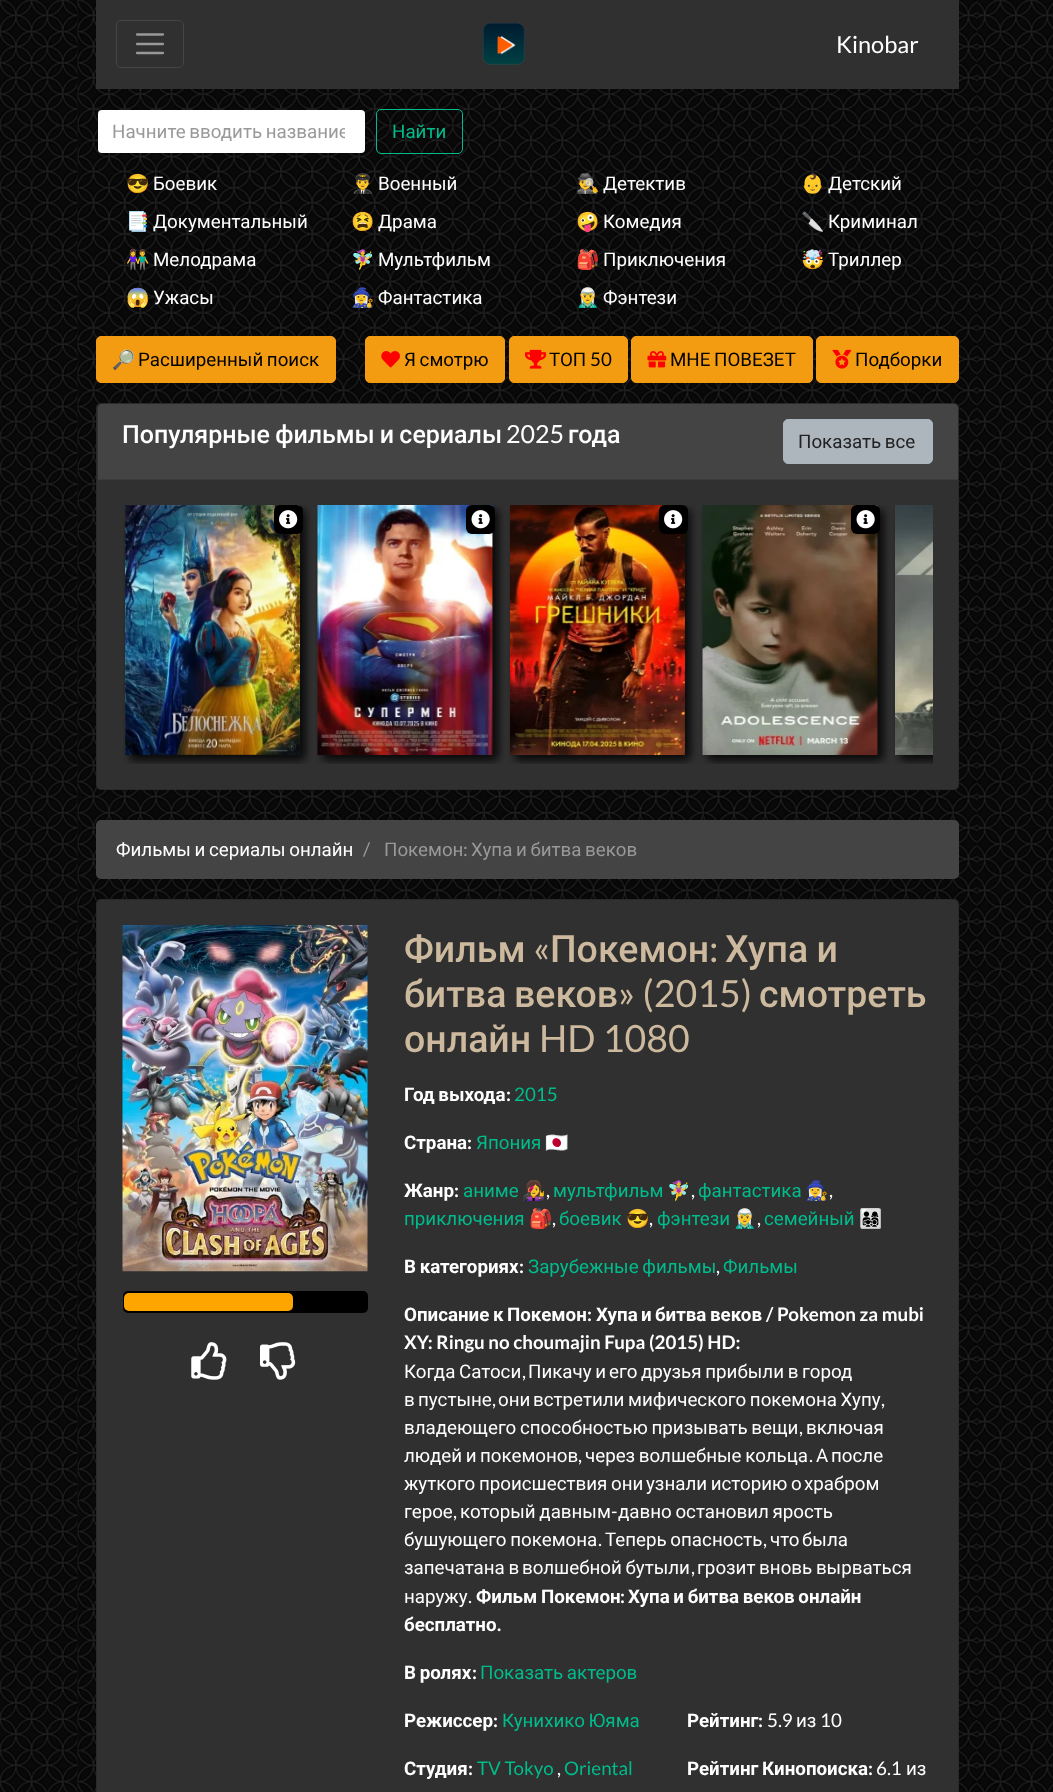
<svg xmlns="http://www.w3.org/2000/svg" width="1053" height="1792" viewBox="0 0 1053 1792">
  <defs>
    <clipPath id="clip1"><rect x="113" y="120" width="232" height="24"/></clipPath>
    <clipPath id="clip2"><rect x="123" y="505" width="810" height="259"/></clipPath>
    <filter id="blur1" x="-50%" y="-200%" width="200%" height="500%"><feGaussianBlur stdDeviation="4"/></filter>
  </defs>
  <rect width="100%" height="100%" fill="#ffffff"/>
  <image x="0" y="0" width="1053" height="1792" href="img1.png"/>
  <image x="77" y="0" width="901" height="1792" href="img2.png"/>
  <rect x="96" y="0" width="863" height="89" fill="#303030"/>
  <rect x="116.5" y="20.5" width="67" height="47" rx="4.5" fill="none" stroke="#454545"/>
  <path d="M137 34.5H163M137 44H163M137 53H163" fill="none" stroke="#989898" stroke-width="2.3" stroke-linecap="round"/>
  <image x="483" y="23" width="42" height="42" href="img3.png"/>
  <text x="836" y="53" font-family="Lato" font-size="23.5" fill="#ffffff">Kinobar</text>
  <rect x="98" y="110" width="267" height="43" rx="4" fill="#ffffff"/>
  <g clip-path="url(#clip1)">
    <text x="112" y="138" word-spacing="-1" font-family="Roboto" font-size="18.75" fill="#999999">Начните вводить название</text>
  </g>
  <rect x="376.5" y="109.5" width="86" height="44" rx="4.5" fill="none" stroke="#00bc8c"/>
  <text x="392" y="138" font-family="Roboto" font-size="18.75" fill="#00bc8c">Найти</text>
  <text x="126" y="190" font-family="Noto Color Emoji" font-size="18.75" fill="#ffffff">😎</text>
  <text x="153" y="190" font-family="Roboto" font-size="18.75" fill="#ffffff">Боевик</text>
  <text x="351" y="190" font-family="Noto Color Emoji" font-size="18.75" fill="#ffffff">👨‍✈️</text>
  <text x="378" y="190" font-family="Roboto" font-size="18.75" fill="#ffffff">Военный</text>
  <text x="576" y="190" font-family="Noto Color Emoji" font-size="18.75" fill="#ffffff">🕵️‍♂️</text>
  <text x="603" y="190" font-family="Roboto" font-size="18.75" fill="#ffffff">Детектив</text>
  <text x="801" y="190" font-family="Noto Color Emoji" font-size="18.75" fill="#ffffff">👶</text>
  <text x="828" y="190" font-family="Roboto" font-size="18.75" fill="#ffffff">Детский</text>
  <text x="126" y="228" font-family="Noto Color Emoji" font-size="18.75" fill="#ffffff">📑</text>
  <text x="153" y="228" font-family="Roboto" font-size="18.75" fill="#ffffff">Документальный</text>
  <text x="351" y="228" font-family="Noto Color Emoji" font-size="18.75" fill="#ffffff">😫</text>
  <text x="378" y="228" font-family="Roboto" font-size="18.75" fill="#ffffff">Драма</text>
  <text x="576" y="228" font-family="Noto Color Emoji" font-size="18.75" fill="#ffffff">🤪</text>
  <text x="603" y="228" font-family="Roboto" font-size="18.75" fill="#ffffff">Комедия</text>
  <text x="801" y="228" font-family="Noto Color Emoji" font-size="18.75" fill="#ffffff">🔪</text>
  <text x="828" y="228" font-family="Roboto" font-size="18.75" fill="#ffffff">Криминал</text>
  <text x="126" y="266" font-family="Noto Color Emoji" font-size="18.75" fill="#ffffff">👫</text>
  <text x="153" y="266" font-family="Roboto" font-size="18.75" fill="#ffffff">Мелодрама</text>
  <text x="351" y="266" font-family="Noto Color Emoji" font-size="18.75" fill="#ffffff">🧚‍♀️</text>
  <text x="378" y="266" font-family="Roboto" font-size="18.75" fill="#ffffff">Мультфильм</text>
  <text x="576" y="266" font-family="Noto Color Emoji" font-size="18.75" fill="#ffffff">🎒</text>
  <text x="603" y="266" font-family="Roboto" font-size="18.75" fill="#ffffff">Приключения</text>
  <text x="801" y="266" font-family="Noto Color Emoji" font-size="18.75" fill="#ffffff">🤯</text>
  <text x="828" y="266" font-family="Roboto" font-size="18.75" fill="#ffffff">Триллер</text>
  <text x="126" y="304" font-family="Noto Color Emoji" font-size="18.75" fill="#ffffff">😱</text>
  <text x="153" y="304" font-family="Roboto" font-size="18.75" fill="#ffffff">Ужасы</text>
  <text x="351" y="304" font-family="Noto Color Emoji" font-size="18.75" fill="#ffffff">🧙‍♀️</text>
  <text x="378" y="304" font-family="Roboto" font-size="18.75" fill="#ffffff">Фантастика</text>
  <text x="576" y="304" font-family="Noto Color Emoji" font-size="18.75" fill="#ffffff">🧝‍♂️</text>
  <text x="603" y="304" font-family="Roboto" font-size="18.75" fill="#ffffff">Фэнтези</text>
  <rect x="96.5" y="336.5" width="239" height="46" rx="4.5" fill="#f39c12" stroke="#f39c12"/>
  <text x="112" y="366" font-family="Noto Color Emoji" font-size="18.75" fill="#000000">🔎</text>
  <text x="138" y="366" word-spacing="-1" font-family="Roboto" font-size="18.75" fill="#000000">Расширенный поиск</text>
  <rect x="365.5" y="336.5" width="139" height="46" rx="4.5" fill="#f39c12" stroke="#f39c12"/>
  <image x="381" y="351" width="19" height="17" href="img4.png"/>
  <text x="404" y="366" word-spacing="-1" font-family="Roboto" font-size="18.75" fill="#000000">Я смотрю</text>
  <rect x="509.5" y="336.5" width="118" height="46" rx="4.5" fill="#f39c12" stroke="#f39c12"/>
  <image x="525" y="349" width="22" height="20" href="img5.png"/>
  <text x="549" y="366" font-family="Roboto" font-size="18.75" fill="#000000">ТОП</text>
  <text x="590" y="366" font-family="Lato" font-size="18.75" fill="#000000">50</text>
  <rect x="631.5" y="336.5" width="181" height="46" rx="4.5" fill="#f39c12" stroke="#f39c12"/>
  <image x="647" y="351" width="20" height="17" href="img6.png"/>
  <text x="670" y="366" word-spacing="-1" font-family="Roboto" font-size="18.75" fill="#000000">МНЕ ПОВЕЗЕТ</text>
  <rect x="816.5" y="336.5" width="142" height="46" rx="4.5" fill="#f39c12" stroke="#f39c12"/>
  <image x="832" y="349" width="20" height="20" href="img7.png"/>
  <text x="855" y="366" font-family="Roboto" font-size="18.75" fill="#000000">Подборки</text>
  <rect x="96" y="403" width="863" height="387" rx="5" fill="#303030"/>
  <rect x="96.5" y="403.5" width="862" height="386" rx="4.5" fill="none" stroke="#000000" stroke-opacity="0.12"/>
  <path d="M102 404H954C956 404 958 406 958 408V480H98V408C98 406 100 404 102 404Z" fill="#444444"/>
  <rect x="98" y="479" width="860" height="1" fill="#3c3c3c"/>
  <text x="122" y="443" word-spacing="-1" font-family="Roboto" font-size="25" font-weight="500" fill="#ffffff">Популярные фильмы и сериалы</text>
  <text x="506" y="443" font-family="Lato" font-size="25" fill="#ffffff">2025</text>
  <text x="568" y="443" font-family="Roboto" font-size="25" font-weight="500" fill="#ffffff">года</text>
  <rect x="783.5" y="419.5" width="149" height="44" rx="4.5" fill="#adb5bd" stroke="#adb5bd"/>
  <text x="798" y="448" word-spacing="-1" font-family="Roboto" font-size="18.75" fill="#222222">Показать все</text>
  <g clip-path="url(#clip2)">
    <rect x="130" y="510" width="175" height="250" rx="6" fill="#000000" fill-opacity="0.54" filter="url(#blur1)"/>
    <rect x="130" y="510" width="175" height="250" fill="#000000" fill-opacity="0.54" filter="url(#blur1)"/>
  </g>
  <image x="125" y="505" width="175" height="250" href="img8.png"/>
  <rect x="274" y="505" width="29" height="29" rx="6" fill="#000000"/>
  <image x="279" y="510" width="19" height="19" href="img9.png"/>
  <g clip-path="url(#clip2)">
    <rect x="323" y="510" width="175" height="250" rx="6" fill="#000000" fill-opacity="0.54" filter="url(#blur1)"/>
    <rect x="323" y="510" width="175" height="250" fill="#000000" fill-opacity="0.54" filter="url(#blur1)"/>
  </g>
  <image x="317" y="505" width="176" height="250" href="img10.png"/>
  <rect x="466" y="505" width="29" height="29" rx="6" fill="#000000"/>
  <image x="471" y="510" width="19" height="19" href="img11.png"/>
  <g clip-path="url(#clip2)">
    <rect x="515" y="510" width="175" height="250" rx="6" fill="#000000" fill-opacity="0.54" filter="url(#blur1)"/>
    <rect x="515" y="510" width="175" height="250" fill="#000000" fill-opacity="0.54" filter="url(#blur1)"/>
  </g>
  <image x="510" y="505" width="175" height="250" href="img12.png"/>
  <rect x="659" y="505" width="29" height="29" rx="6" fill="#000000"/>
  <image x="664" y="510" width="19" height="19" href="img9.png"/>
  <g clip-path="url(#clip2)">
    <rect x="708" y="510" width="175" height="250" rx="6" fill="#000000" fill-opacity="0.54" filter="url(#blur1)"/>
    <rect x="708" y="510" width="175" height="250" fill="#000000" fill-opacity="0.54" filter="url(#blur1)"/>
  </g>
  <image x="702" y="505" width="176" height="250" href="img13.png"/>
  <rect x="851" y="505" width="29" height="29" rx="6" fill="#000000"/>
  <image x="856" y="510" width="19" height="19" href="img11.png"/>
  <g clip-path="url(#clip2)">
    <rect x="900" y="510" width="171" height="250" rx="6" fill="#000000" fill-opacity="0.54" filter="url(#blur1)"/>
    <rect x="900" y="510" width="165" height="250" fill="#000000" fill-opacity="0.54" filter="url(#blur1)"/>
  </g>
  <image x="895" y="505" width="38" height="250" href="img14.png"/>
  <rect x="96" y="820" width="863" height="59" rx="5" fill="#444444"/>
  <text x="116" y="856" word-spacing="-1" font-family="Roboto" font-size="18.75" fill="#ffffff">Фильмы и сериалы онлайн</text>
  <text x="363" y="856" font-family="Lato" font-size="18.75" fill="#999999">/</text>
  <text x="384" y="856" font-family="Roboto" font-size="18.75" fill="#999999">Покемон</text>
  <text x="463" y="856" font-family="Lato" font-size="18.75" fill="#999999">:</text>
  <text x="471" y="856" word-spacing="-1" font-family="Roboto" font-size="18.75" fill="#999999">Хупа и битва веков</text>
  <rect x="96" y="899" width="863" height="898" rx="5" fill="#303030"/>
  <rect x="96.5" y="899.5" width="862" height="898" rx="4.5" fill="none" stroke="#000000" stroke-opacity="0.12"/>
  <image x="122" y="925" width="246" height="347" href="img15.png"/>
  <rect x="123" y="1291" width="245" height="22" rx="5" fill="#000000"/>
  <rect x="124" y="1293" width="169" height="18" rx="5" fill="#ffa500"/>
  <image x="191" y="1342" width="36" height="38" href="img16.png"/>
  <image x="260" y="1342" width="36" height="38" href="img17.png"/>
  <text x="404" y="962" font-family="Roboto" font-size="37.5" font-weight="500" fill="#cdb99e">Фильм</text>
  <text x="533" y="962" font-family="Lato" font-size="37.5" fill="#cdb99e">«</text>
  <text x="550" y="962" font-family="Roboto" font-size="37.5" font-weight="500" fill="#cdb99e">Покемон</text>
  <text x="709" y="962" font-family="Lato" font-size="37.5" fill="#cdb99e">:</text>
  <text x="725" y="962" word-spacing="-1" font-family="Roboto" font-size="37.5" font-weight="500" fill="#cdb99e">Хупа и</text>
  <text x="404" y="1007" font-family="Roboto" font-size="37.5" font-weight="500" fill="#cdb99e">битва</text>
  <text x="514" y="1007" font-family="Roboto" font-size="37.5" font-weight="500" fill="#cdb99e">веков</text>
  <text x="618" y="1007" font-family="Lato" font-size="37.5" fill="#cdb99e">» (2015)</text>
  <text x="759" y="1007" font-family="Roboto" font-size="37.5" font-weight="500" fill="#cdb99e">смотреть</text>
  <text x="404" y="1052" font-family="Roboto" font-size="37.5" font-weight="500" fill="#cdb99e">онлайн</text>
  <text x="539" y="1052" font-family="Lato" font-size="37.5" fill="#cdb99e">HD 1080</text>
  <text x="404" y="1101" word-spacing="-1" font-family="Roboto" font-size="18.75" font-weight="bold" fill="#ffffff">Год выхода</text>
  <text x="506" y="1101" font-family="Lato" font-size="18.75" font-weight="bold" fill="#ffffff">:</text>
  <text x="514" y="1101" font-family="Lato" font-size="18.75" fill="#00bc8c">2015</text>
  <text x="404" y="1149" font-family="Roboto" font-size="18.75" font-weight="bold" fill="#ffffff">Страна</text>
  <text x="467" y="1149" font-family="Lato" font-size="18.75" font-weight="bold" fill="#ffffff">:</text>
  <text x="476" y="1149" font-family="Roboto" font-size="18.75" fill="#00bc8c">Япония</text>
  <text x="545" y="1149" font-family="Noto Color Emoji" font-size="18.75" fill="#ffffff">🇯🇵</text>
  <text x="404" y="1197" font-family="Roboto" font-size="18.75" font-weight="bold" fill="#ffffff">Жанр</text>
  <text x="454" y="1197" font-family="Lato" font-size="18.75" font-weight="bold" fill="#ffffff">:</text>
  <text x="463" y="1197" font-family="Roboto" font-size="18.75" fill="#00bc8c">аниме</text>
  <text x="522" y="1197" font-family="Noto Color Emoji" font-size="18.75" fill="#ffffff">👩‍🎤</text>
  <text x="546" y="1197" font-family="Lato" font-size="18.75" fill="#ffffff">,</text>
  <text x="553" y="1197" font-family="Roboto" font-size="18.75" fill="#00bc8c">мультфильм</text>
  <text x="667" y="1197" font-family="Noto Color Emoji" font-size="18.75" fill="#ffffff">🧚‍♀️</text>
  <text x="691" y="1197" font-family="Lato" font-size="18.75" fill="#ffffff">,</text>
  <text x="698" y="1197" font-family="Roboto" font-size="18.75" fill="#00bc8c">фантастика</text>
  <text x="805" y="1197" font-family="Noto Color Emoji" font-size="18.75" fill="#ffffff">🧙‍♀️</text>
  <text x="829" y="1197" font-family="Lato" font-size="18.75" fill="#ffffff">,</text>
  <text x="404" y="1225" font-family="Roboto" font-size="18.75" fill="#00bc8c">приключения</text>
  <text x="529" y="1225" font-family="Noto Color Emoji" font-size="18.75" fill="#ffffff">🎒</text>
  <text x="552" y="1225" font-family="Lato" font-size="18.75" fill="#ffffff">,</text>
  <text x="559" y="1225" font-family="Roboto" font-size="18.75" fill="#00bc8c">боевик</text>
  <text x="626" y="1225" font-family="Noto Color Emoji" font-size="18.75" fill="#ffffff">😎</text>
  <text x="649" y="1225" font-family="Lato" font-size="18.75" fill="#ffffff">,</text>
  <text x="657" y="1225" font-family="Roboto" font-size="18.75" fill="#00bc8c">фэнтези</text>
  <text x="733" y="1225" font-family="Noto Color Emoji" font-size="18.75" fill="#ffffff">🧝‍♂️</text>
  <text x="757" y="1225" font-family="Lato" font-size="18.75" fill="#ffffff">,</text>
  <text x="764" y="1225" font-family="Roboto" font-size="18.75" fill="#00bc8c">семейный</text>
  <text x="859" y="1225" font-family="Noto Color Emoji" font-size="18.75" fill="#ffffff">👨‍👩‍👧‍👦</text>
  <text x="404" y="1273" word-spacing="-1" font-family="Roboto" font-size="18.75" font-weight="bold" fill="#ffffff">В категориях</text>
  <text x="519" y="1273" font-family="Lato" font-size="18.75" font-weight="bold" fill="#ffffff">:</text>
  <text x="528" y="1273" word-spacing="-1" font-family="Roboto" font-size="18.75" fill="#00bc8c">Зарубежные фильмы</text>
  <text x="716" y="1273" font-family="Lato" font-size="18.75" fill="#ffffff">,</text>
  <text x="723" y="1273" font-family="Roboto" font-size="18.75" fill="#00bc8c">Фильмы</text>
  <text x="404" y="1321" font-family="Roboto" font-size="18.75" font-weight="bold" fill="#ffffff">Описание</text>
  <text x="493" y="1321" font-family="Roboto" font-size="18.75" font-weight="bold" fill="#ffffff">к</text>
  <text x="507" y="1321" font-family="Roboto" font-size="18.75" font-weight="bold" fill="#ffffff">Покемон</text>
  <text x="587" y="1321" font-family="Lato" font-size="18.75" font-weight="bold" fill="#ffffff">:</text>
  <text x="596" y="1321" font-family="Roboto" font-size="18.75" font-weight="bold" fill="#ffffff">Хупа</text>
  <text x="641" y="1321" font-family="Roboto" font-size="18.75" font-weight="bold" fill="#ffffff">и</text>
  <text x="655" y="1321" font-family="Roboto" font-size="18.75" font-weight="bold" fill="#ffffff">битва</text>
  <text x="710" y="1321" font-family="Roboto" font-size="18.75" font-weight="bold" fill="#ffffff">веков</text>
  <text x="766" y="1321" font-family="Lato" font-size="18.75" font-weight="bold" fill="#ffffff">/ Pokemon za mubi</text>
  <text x="404" y="1349" font-family="Lato" font-size="18.75" font-weight="bold" fill="#ffffff">XY: Ringu no choumajin Fupa (2015) HD:</text>
  <text x="404" y="1378" word-spacing="-1" font-family="Roboto" font-size="18.75" fill="#ffffff">Когда Сатоси</text>
  <text x="522" y="1378" font-family="Lato" font-size="18.75" fill="#ffffff">,</text>
  <text x="528" y="1378" word-spacing="-1" font-family="Roboto" font-size="18.75" fill="#ffffff">Пикачу и</text>
  <text x="609" y="1378" word-spacing="-1" font-family="Roboto" font-size="18.75" fill="#ffffff">его друзья прибыли в</text>
  <text x="802" y="1378" font-family="Roboto" font-size="18.75" fill="#ffffff">город</text>
  <text x="404" y="1406" font-family="Roboto" font-size="18.75" fill="#ffffff">в</text>
  <text x="418" y="1406" font-family="Roboto" font-size="18.75" fill="#ffffff">пустыне</text>
  <text x="492" y="1406" font-family="Lato" font-size="18.75" fill="#ffffff">,</text>
  <text x="498" y="1406" font-family="Roboto" font-size="18.75" fill="#ffffff">они</text>
  <text x="533" y="1406" word-spacing="-1" font-family="Roboto" font-size="18.75" fill="#ffffff">встретили мифического покемона Хупу</text>
  <text x="881" y="1406" font-family="Lato" font-size="18.75" fill="#ffffff">,</text>
  <text x="404" y="1434" word-spacing="-1" font-family="Roboto" font-size="18.75" fill="#ffffff">владеющего способностью призывать вещи</text>
  <text x="799" y="1434" font-family="Lato" font-size="18.75" fill="#ffffff">,</text>
  <text x="806" y="1434" font-family="Roboto" font-size="18.75" fill="#ffffff">включая</text>
  <text x="404" y="1462" word-spacing="-1" font-family="Roboto" font-size="18.75" fill="#ffffff">людей и</text>
  <text x="480" y="1462" font-family="Roboto" font-size="18.75" fill="#ffffff">покемонов</text>
  <text x="578" y="1462" font-family="Lato" font-size="18.75" fill="#ffffff">,</text>
  <text x="585" y="1462" word-spacing="-1" font-family="Roboto" font-size="18.75" fill="#ffffff">через волшебные кольца</text>
  <text x="809" y="1462" font-family="Lato" font-size="18.75" fill="#ffffff">.</text>
  <text x="816" y="1462" font-family="Roboto" font-size="18.75" fill="#ffffff">А</text>
  <text x="831" y="1462" font-family="Roboto" font-size="18.75" fill="#ffffff">после</text>
  <text x="404" y="1490" word-spacing="-1" font-family="Roboto" font-size="18.75" fill="#ffffff">жуткого происшествия они</text>
  <text x="646" y="1490" word-spacing="-1" font-family="Roboto" font-size="18.75" fill="#ffffff">узнали историю о</text>
  <text x="804" y="1490" font-family="Roboto" font-size="18.75" fill="#ffffff">храбром</text>
  <text x="404" y="1518" font-family="Roboto" font-size="18.75" fill="#ffffff">герое</text>
  <text x="460" y="1518" word-spacing="-1" font-family="Roboto" font-size="18.75" fill="#ffffff">который давным</text>
  <text x="611" y="1518" font-family="Lato" font-size="18.75" fill="#ffffff">-</text>
  <text x="618" y="1518" word-spacing="-1" font-family="Roboto" font-size="18.75" fill="#ffffff">давно остановил ярость</text>
  <text x="453" y="1518" font-family="Lato" font-size="18.75" fill="#ffffff">,</text>
  <text x="404" y="1546" word-spacing="-1" font-family="Roboto" font-size="18.75" fill="#ffffff">бушующего покемона</text>
  <text x="598" y="1546" font-family="Lato" font-size="18.75" fill="#ffffff">.</text>
  <text x="605" y="1546" word-spacing="-1" font-family="Roboto" font-size="18.75" fill="#ffffff">Теперь опасность</text>
  <text x="763" y="1546" font-family="Lato" font-size="18.75" fill="#ffffff">,</text>
  <text x="770" y="1546" font-family="Roboto" font-size="18.75" fill="#ffffff">что</text>
  <text x="802" y="1546" font-family="Roboto" font-size="18.75" fill="#ffffff">была</text>
  <text x="404" y="1574" word-spacing="-1" font-family="Roboto" font-size="18.75" fill="#ffffff">запечатана в</text>
  <text x="522" y="1574" word-spacing="-1" font-family="Roboto" font-size="18.75" fill="#ffffff">волшебной бутыли</text>
  <text x="691" y="1574" font-family="Lato" font-size="18.75" fill="#ffffff">,</text>
  <text x="697" y="1574" word-spacing="-1" font-family="Roboto" font-size="18.75" fill="#ffffff">грозит вновь вырваться</text>
  <text x="404" y="1603" font-family="Roboto" font-size="18.75" fill="#ffffff">наружу</text>
  <text x="468" y="1603" font-family="Lato" font-size="18.75" fill="#ffffff">.</text>
  <text x="476" y="1603" word-spacing="-1" font-family="Roboto" font-size="18.75" font-weight="bold" fill="#ffffff">Фильм Покемон</text>
  <text x="620" y="1603" font-family="Lato" font-size="18.75" font-weight="bold" fill="#ffffff">:</text>
  <text x="628" y="1603" word-spacing="-1" font-family="Roboto" font-size="18.75" font-weight="bold" fill="#ffffff">Хупа и битва веков онлайн</text>
  <text x="404" y="1631" font-family="Roboto" font-size="18.75" font-weight="bold" fill="#ffffff">бесплатно</text>
  <text x="497" y="1631" font-family="Lato" font-size="18.75" font-weight="bold" fill="#ffffff">.</text>
  <text x="404" y="1679" word-spacing="-1" font-family="Roboto" font-size="18.75" font-weight="bold" fill="#ffffff">В ролях</text>
  <text x="472" y="1679" font-family="Lato" font-size="18.75" font-weight="bold" fill="#ffffff">:</text>
  <text x="480" y="1679" word-spacing="-1" font-family="Roboto" font-size="18.75" fill="#00bc8c">Показать актеров</text>
  <text x="404" y="1727" font-family="Roboto" font-size="18.75" font-weight="bold" fill="#ffffff">Режиссер</text>
  <text x="493" y="1727" font-family="Lato" font-size="18.75" font-weight="bold" fill="#ffffff">:</text>
  <text x="502" y="1727" word-spacing="-1" font-family="Roboto" font-size="18.75" fill="#00bc8c">Кунихико Юяма</text>
  <text x="404" y="1775" font-family="Roboto" font-size="18.75" font-weight="bold" fill="#ffffff">Студия</text>
  <text x="468" y="1775" font-family="Lato" font-size="18.75" font-weight="bold" fill="#ffffff">:</text>
  <text x="477" y="1775" font-family="Lato" font-size="18.75" fill="#00bc8c">TV Tokyo</text>
  <text x="557" y="1775" font-family="Lato" font-size="18.75" fill="#ffffff">,</text>
  <text x="564" y="1775" font-family="Lato" font-size="18.75" fill="#00bc8c">Oriental</text>
  <text x="687" y="1727" font-family="Roboto" font-size="18.75" font-weight="bold" fill="#ffffff">Рейтинг</text>
  <text x="758" y="1727" font-family="Lato" font-size="18.75" font-weight="bold" fill="#ffffff">:</text>
  <text x="767" y="1727" font-family="Lato" font-size="18.75" fill="#ffffff">5.9</text>
  <text x="796" y="1727" font-family="Roboto" font-size="18.75" fill="#ffffff">из</text>
  <text x="820" y="1727" font-family="Lato" font-size="18.75" fill="#ffffff">10</text>
  <text x="687" y="1775" word-spacing="-1" font-family="Roboto" font-size="18.75" font-weight="bold" fill="#ffffff">Рейтинг Кинопоиска</text>
  <text x="868" y="1775" font-family="Lato" font-size="18.75" font-weight="bold" fill="#ffffff">:</text>
  <text x="876" y="1775" font-family="Lato" font-size="18.75" fill="#ffffff">6.1</text>
  <text x="906" y="1775" font-family="Roboto" font-size="18.75" fill="#ffffff">из</text>
</svg>
